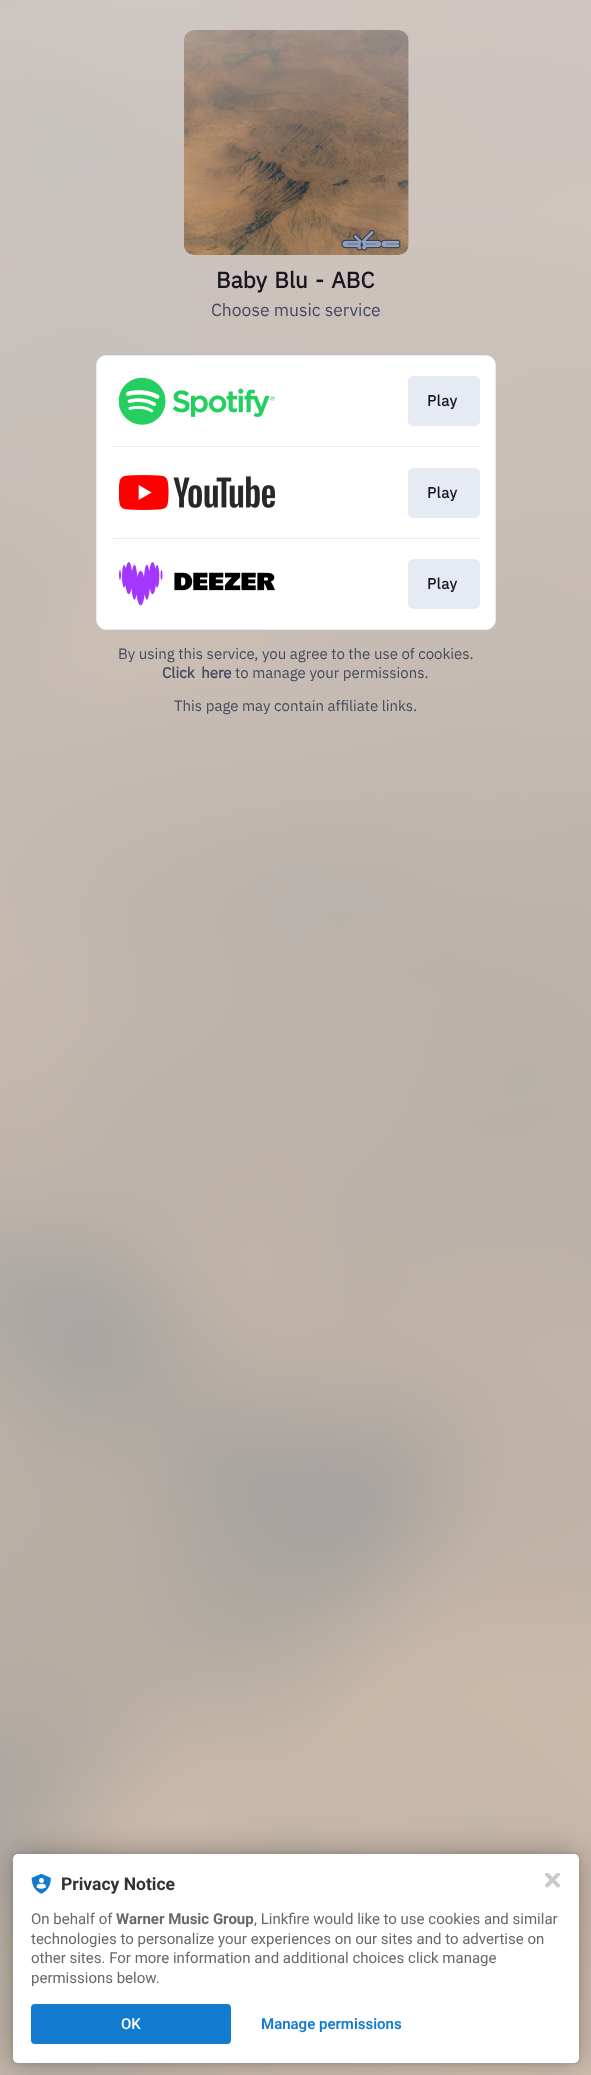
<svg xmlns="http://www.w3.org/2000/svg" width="591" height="2075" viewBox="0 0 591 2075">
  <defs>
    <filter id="blur1" x="-50%" y="-200%" width="200%" height="500%"><feGaussianBlur stdDeviation="2.5"/></filter>
    <filter id="blur2" x="-50%" y="-200%" width="200%" height="500%"><feGaussianBlur stdDeviation="15"/></filter>
  </defs>
  <rect width="100%" height="100%" fill="#ffffff"/>
  <image x="0" y="0" width="591" height="2075" href="img1.png"/>
  <image x="184" y="30" width="225" height="225" href="img2.png"/>
  <text x="216" y="288" word-spacing="2" font-family="IBM Plex Sans" font-size="22.5" font-weight="bold" fill="#181721">Baby Blu - ABC</text>
  <text x="211" y="316" font-family="IBM Plex Sans" font-size="17.5" fill="#454b5f">Choose music service</text>
  <rect x="96.5" y="355.5" width="399" height="274" rx="9.5" fill="#ffffff" stroke="#e6eaf2"/>
  <rect x="98" y="356" width="397" height="273" rx="9" fill="#ffffff"/>
  <image x="119" y="377" width="156" height="48" href="img3.png"/>
  <rect x="408" y="376" width="72" height="50" rx="5" fill="#e6eaf2"/>
  <text x="427" y="406" font-family="IBM Plex Sans" font-size="15" font-weight="bold" letter-spacing="0.5" fill="#181721">Play</text>
  <rect x="113" y="446" width="367" height="1" fill="#e6eaf2"/>
  <image x="119" y="475" width="156" height="35" href="img4.png"/>
  <rect x="408" y="468" width="72" height="50" rx="5" fill="#e6eaf2"/>
  <text x="427" y="498" font-family="IBM Plex Sans" font-size="15" font-weight="bold" letter-spacing="0.5" fill="#181721">Play</text>
  <rect x="113" y="538" width="367" height="1" fill="#e6eaf2"/>
  <image x="119" y="562" width="156" height="44" href="img5.png"/>
  <rect x="408" y="559" width="72" height="50" rx="5" fill="#e6eaf2"/>
  <text x="427" y="589" font-family="IBM Plex Sans" font-size="15" font-weight="bold" letter-spacing="0.5" fill="#181721">Play</text>
  <text x="118" y="659" font-family="IBM Plex Sans" font-size="15" fill="#454b5f">By using this service, you agree to the use of cookies.</text>
  <text x="162" y="678" word-spacing="3" font-family="IBM Plex Sans" font-size="15" font-weight="bold" fill="#454b5f">Click here</text>
  <text x="235" y="678" font-family="IBM Plex Sans" font-size="15" fill="#454b5f">to manage your permissions.</text>
  <text x="174" y="711" font-family="IBM Plex Sans" font-size="15" fill="#454b5f">This page may contain affiliate links.</text>
  <rect x="13" y="1854" width="566" height="209" rx="5" fill="#000000" fill-opacity="0.12" filter="url(#blur1)"/>
  <rect x="13" y="1854" width="566" height="209" rx="5" fill="#000000" fill-opacity="0.3" filter="url(#blur2)"/>
  <rect x="13" y="1854" width="566" height="209" rx="5" fill="#ffffff"/>
  <image x="545" y="1873" width="15" height="15" href="img6.png"/>
  <image x="31" y="1874" width="20" height="20" href="img7.png"/>
  <text x="61" y="1890" font-family="Roboto" font-size="17.5" font-weight="bold" fill="#323232">Privacy Notice</text>
  <text x="31" y="1924" font-family="Roboto" font-size="15" fill="#686868">On behalf of</text>
  <text x="116" y="1924" font-family="Roboto" font-size="15" font-weight="bold" fill="#686868">Warner Music Group</text>
  <text x="254" y="1924" font-family="Roboto" font-size="15" fill="#686868">, Linkfire would like to use cookies and similar</text>
  <text x="31" y="1944" font-family="Roboto" font-size="15" fill="#686868">technologies to personalize your experiences on our sites and to advertise on</text>
  <text x="31" y="1963" font-family="Roboto" font-size="15" fill="#686868">other sites. For more information and additional choices click manage</text>
  <text x="31" y="1983" font-family="Roboto" font-size="15" fill="#686868">permissions below.</text>
  <rect x="31" y="2004" width="200" height="40" rx="4" fill="#137bcf"/>
  <text x="121" y="2029" font-family="Roboto" font-size="15" font-weight="500" fill="#ffffff">OK</text>
  <text x="261" y="2029" font-family="Roboto" font-size="15" font-weight="600" fill="#137bcf">Manage permissions</text>
</svg>
